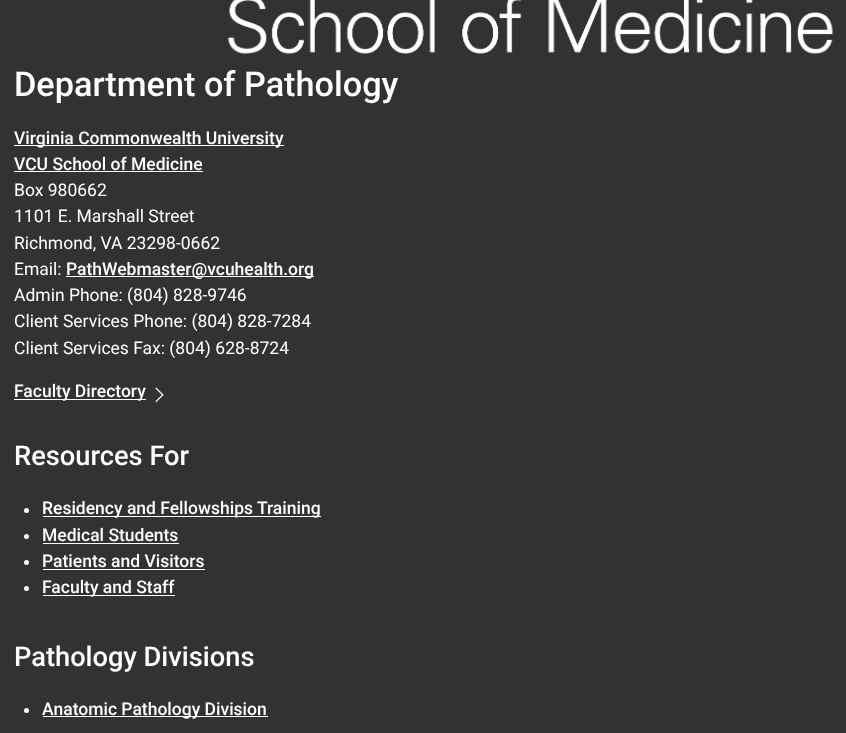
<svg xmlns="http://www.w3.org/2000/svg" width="846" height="733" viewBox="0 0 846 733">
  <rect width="100%" height="100%" fill="#323232"/>
  <image x="227" y="0" width="606" height="54" href="img1.png"/>
  <text x="14" y="96" font-family="Roboto" font-size="34.25" font-weight="500" fill="#ffffff">Department of Pathology</text>
  <rect x="14" y="145" width="270" height="1" fill="#ffffff"/>
  <text x="14" y="144" font-family="Roboto" font-size="17.5" font-weight="500" fill="#ffffff">Virginia Commonwealth University</text>
  <text x="14" y="170" font-family="Roboto" font-size="17.5" font-weight="500" fill="#ffffff">VCU School of Medicine</text>
  <rect x="14" y="171" width="189" height="1" fill="#ffffff"/>
  <text x="14" y="196" font-family="Roboto" font-size="17.5" fill="#ffffff">Box 980662</text>
  <text x="14" y="222" font-family="Roboto" font-size="17.5" fill="#ffffff">1101 E. Marshall Street</text>
  <text x="14" y="249" font-family="Roboto" font-size="17.5" fill="#ffffff">Richmond, VA 23298-0662</text>
  <text x="14" y="275" font-family="Roboto" font-size="17.5" fill="#ffffff">Email:</text>
  <rect x="66" y="276" width="248" height="1" fill="#ffffff"/>
  <text x="66" y="275" font-family="Roboto" font-size="17.5" font-weight="500" fill="#ffffff">PathWebmaster@vcuhealth.org</text>
  <text x="14" y="301" font-family="Roboto" font-size="17.5" fill="#ffffff">Admin Phone: (804) 828-9746</text>
  <text x="14" y="327" font-family="Roboto" font-size="17.5" fill="#ffffff">Client Services Phone: (804) 828-7284</text>
  <text x="14" y="354" font-family="Roboto" font-size="17.5" fill="#ffffff">Client Services Fax: (804) 628-8724</text>
  <rect x="14" y="399" width="132" height="1" fill="#ffffff"/>
  <text x="14" y="397" font-family="Roboto" font-size="17.5" font-weight="500" fill="#ffffff">Faculty Directory</text>
  <image x="155" y="387" width="9" height="15" href="img2.png"/>
  <text x="14" y="465" font-family="Roboto" font-size="27.25" font-weight="500" fill="#ffffff">Resources For</text>
  <circle cx="26.5" cy="510.5" r="2.5" fill="#ffffff"/>
  <rect x="43" y="516" width="278" height="1" fill="#ffffff"/>
  <text x="42" y="514" font-family="Roboto" font-size="17.5" font-weight="500" fill="#ffffff">Residency and Fellowships Training</text>
  <circle cx="26.5" cy="536.5" r="2.5" fill="#ffffff"/>
  <text x="42" y="541" font-family="Roboto" font-size="17.5" font-weight="500" fill="#ffffff">Medical Students</text>
  <rect x="43" y="543" width="136" height="1" fill="#ffffff"/>
  <circle cx="26.5" cy="562.5" r="2.5" fill="#ffffff"/>
  <text x="42" y="567" font-family="Roboto" font-size="17.5" font-weight="500" fill="#ffffff">Patients and Visitors</text>
  <rect x="43" y="569" width="162" height="1" fill="#ffffff"/>
  <circle cx="26.5" cy="588.5" r="2.5" fill="#ffffff"/>
  <rect x="43" y="595" width="132" height="1" fill="#ffffff"/>
  <text x="42" y="593" font-family="Roboto" font-size="17.5" font-weight="500" fill="#ffffff">Faculty and Staff</text>
  <text x="14" y="666" font-family="Roboto" font-size="27.25" font-weight="500" fill="#ffffff">Pathology Divisions</text>
  <circle cx="26.5" cy="710.5" r="2.5" fill="#ffffff"/>
  <rect x="43" y="716" width="225" height="1" fill="#ffffff"/>
  <text x="42" y="715" font-family="Roboto" font-size="17.5" font-weight="500" fill="#ffffff">Anatomic Pathology Division</text>
</svg>
